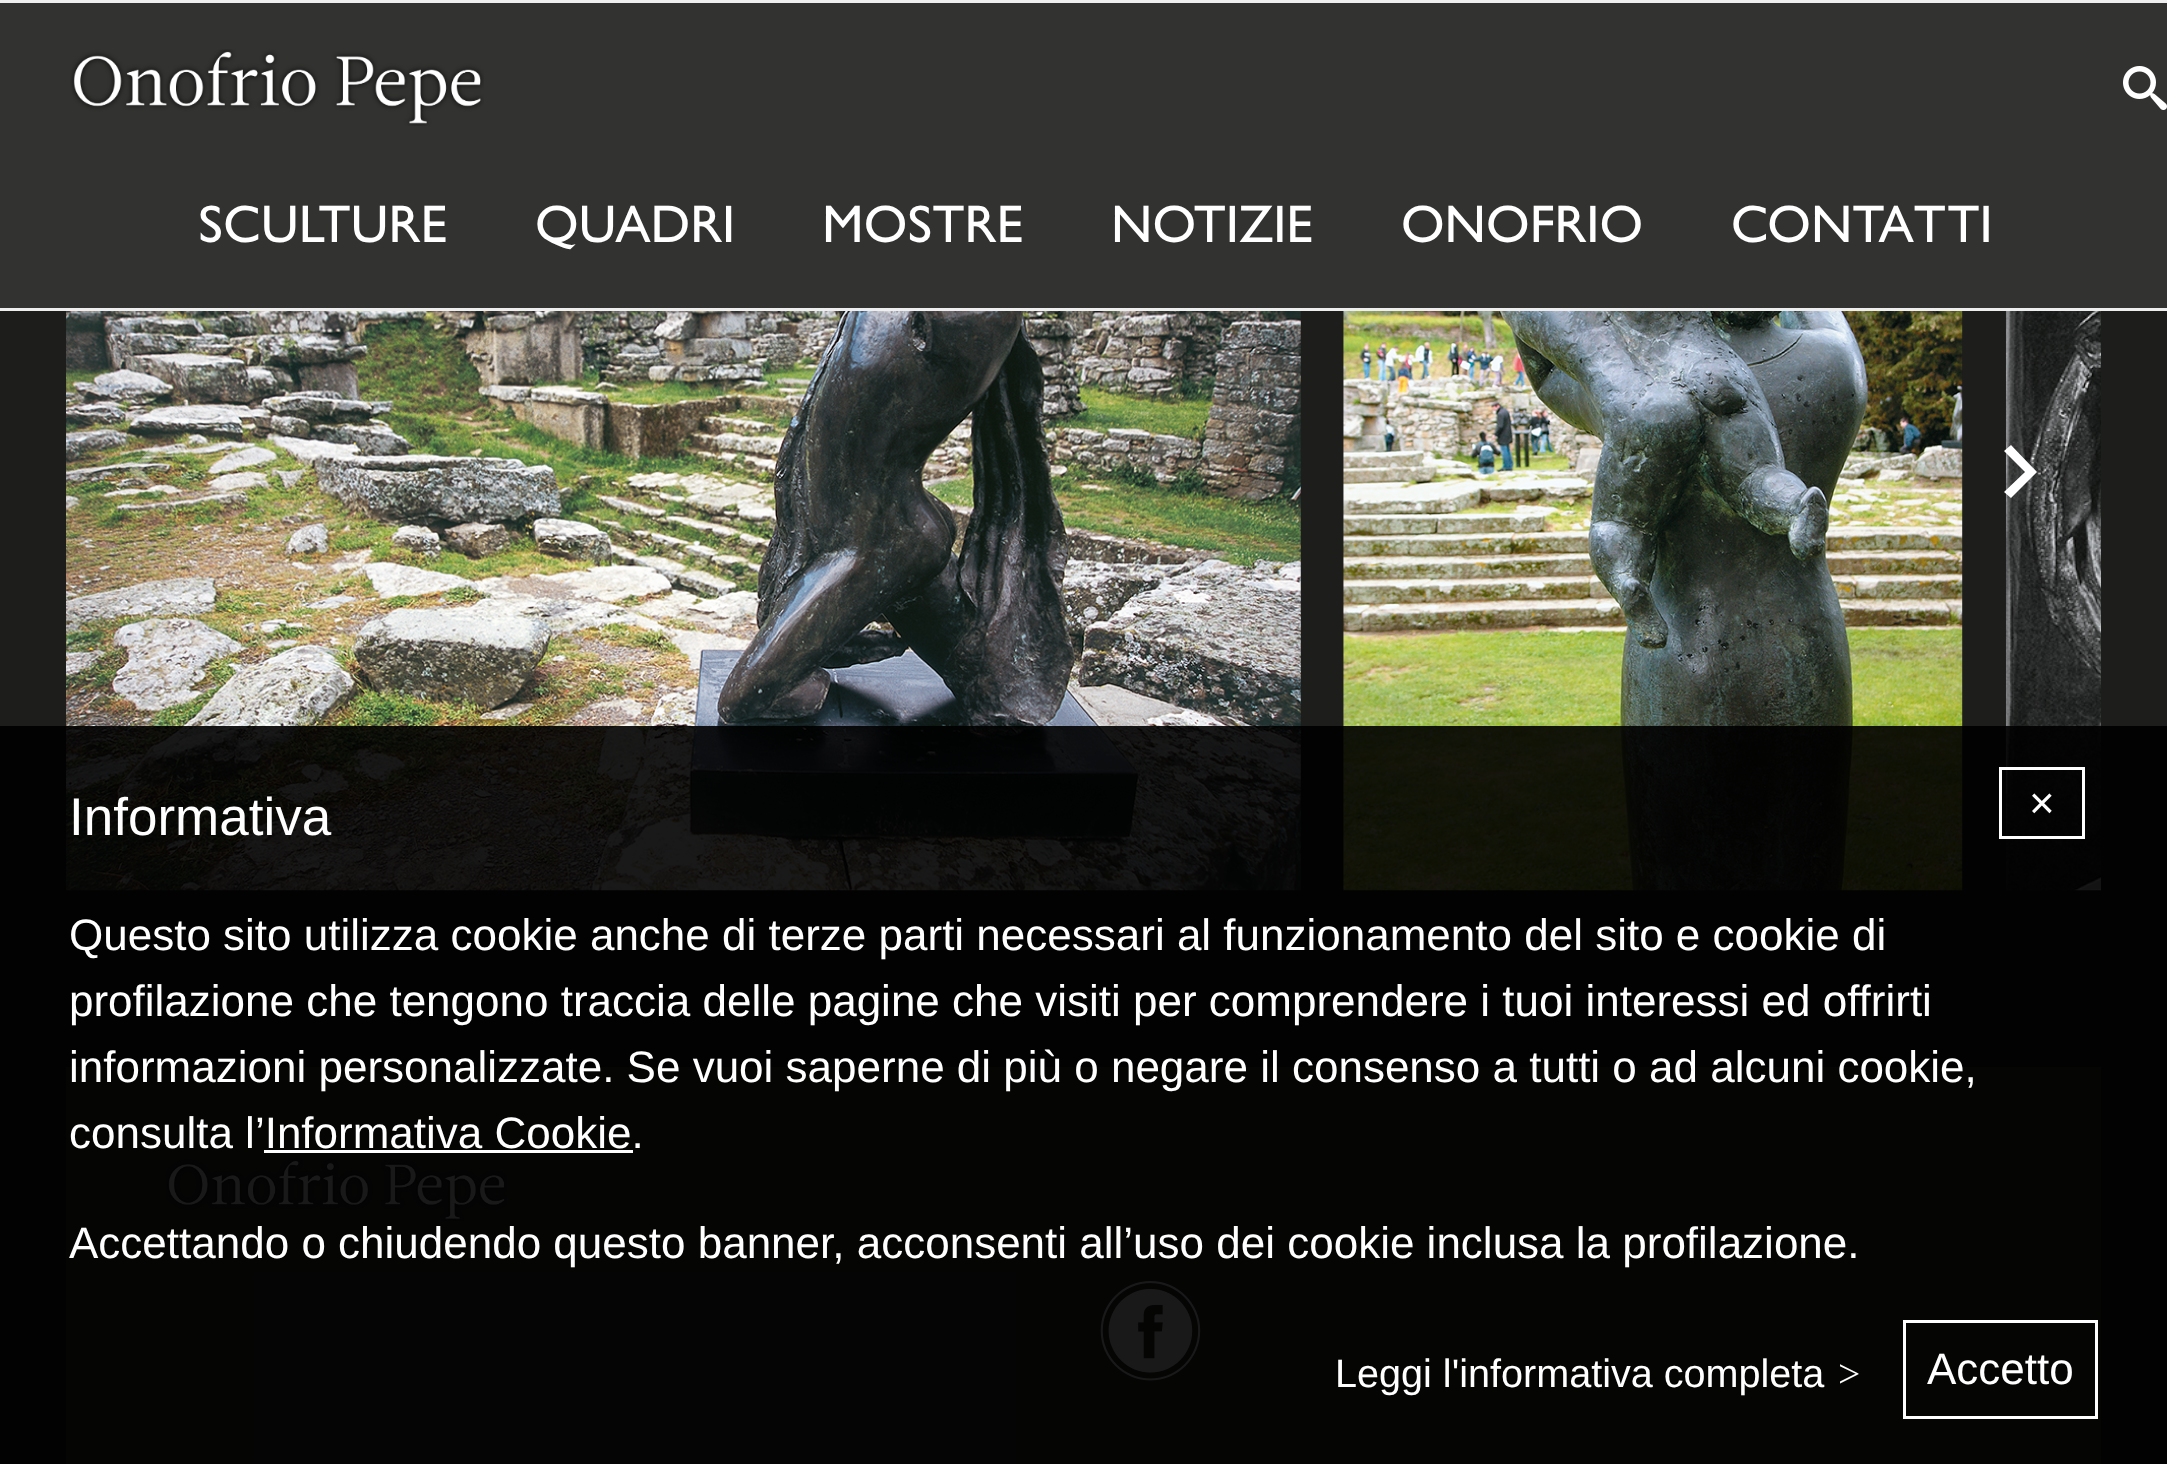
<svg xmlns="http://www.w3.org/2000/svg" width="2167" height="1464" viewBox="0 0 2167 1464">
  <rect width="100%" height="100%" fill="#1d1d1b"/>
  <rect x="0" y="3" width="2167" height="305" fill="#323231"/>
  <rect x="0" y="308" width="2167" height="3" fill="#eeeeee"/>
  <image x="70" y="49" width="414" height="77" href="img1.png"/>
  <rect x="0" y="0" width="2167" height="3" fill="#eeeeee"/>
  <image x="2123" y="66" width="44" height="44" href="img2.png"/>
  <text x="198" y="242" font-family="'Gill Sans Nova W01'" font-size="53" font-weight="500" fill="#ffffff">SCULTURE</text>
  <text x="535" y="242" font-family="'Gill Sans Nova W01'" font-size="53" font-weight="500" fill="#ffffff">QUADRI</text>
  <text x="822" y="242" font-family="'Gill Sans Nova W01'" font-size="53" font-weight="500" fill="#ffffff">MOSTRE</text>
  <text x="1111" y="242" font-family="'Gill Sans Nova W01'" font-size="53" font-weight="500" fill="#ffffff">NOTIZIE</text>
  <text x="1401" y="242" font-family="'Gill Sans Nova W01'" font-size="53" font-weight="500" fill="#ffffff">ONOFRIO</text>
  <text x="1731" y="242" font-family="'Gill Sans Nova W01'" font-size="53" font-weight="500" fill="#ffffff">CONTATTI</text>
  <image x="66" y="311" width="1235" height="580" href="img3.png"/>
  <image x="1343" y="311" width="620" height="580" href="img4.png"/>
  <image x="2005" y="311" width="96" height="580" href="img5.png"/>
  <path d="M162 491L156 497L129 470L156 444L162 450L142 470Z" fill="#ffffff" fill-opacity="0.3"/>
  <path d="M2004 492L2025 472L2004 451L2011 445L2037 472L2011 498Z" fill="#ffffff"/>
  <rect x="66" y="1067" width="2035" height="397" fill="#323231"/>
  <image x="166" y="1158" width="341" height="63" href="img6.png"/>
  <image x="1100" y="1281" width="101" height="100" href="img7.png"/>
  <rect x="0" y="726" width="2167" height="738" fill="#000000" fill-opacity="0.9"/>
  <rect x="2000.5" y="768.5" width="83" height="69" fill="none" stroke="#ffffff" stroke-width="3"/>
  <text x="2029" y="818" font-family="Liberation Sans" font-size="44" fill="#ffffff">×</text>
  <text x="69" y="835" font-family="Liberation Sans" font-size="53" fill="#ffffff">Informativa</text>
  <text x="69" y="950" font-family="Liberation Sans" font-size="44" fill="#ffffff">Questo sito utilizza cookie anche di terze parti necessari al funzionamento del sito e cookie di</text>
  <text x="69" y="1016" font-family="Liberation Sans" font-size="44" fill="#ffffff">profilazione che tengono traccia delle pagine che visiti per comprendere i tuoi interessi ed offrirti</text>
  <text x="69" y="1082" font-family="Liberation Sans" font-size="44" fill="#ffffff">informazioni personalizzate. Se vuoi saperne di più o negare il consenso a tutti o ad alcuni cookie,</text>
  <text x="69" y="1148" font-family="Liberation Sans" font-size="44" fill="#ffffff">consulta l’Informativa Cookie.</text>
  <rect x="264" y="1150" width="369" height="3" fill="#ffffff"/>
  <text x="69" y="1258" font-family="Liberation Sans" font-size="44" fill="#ffffff">Accettando o chiudendo questo banner, acconsenti all’uso dei cookie inclusa la profilazione.</text>
  <text x="1335" y="1387" font-family="Liberation Sans" font-size="39.6" fill="#ffffff">Leggi l'informativa completa</text>
  <text x="1838" y="1387" font-family="Liberation Serif" font-size="39.6" fill="#ffffff">&gt;</text>
  <rect x="1904.5" y="1321.5" width="192" height="96" fill="none" stroke="#ffffff" stroke-width="3"/>
  <text x="1927" y="1384" font-family="Liberation Sans" font-size="44" fill="#ffffff">Accetto</text>
</svg>
